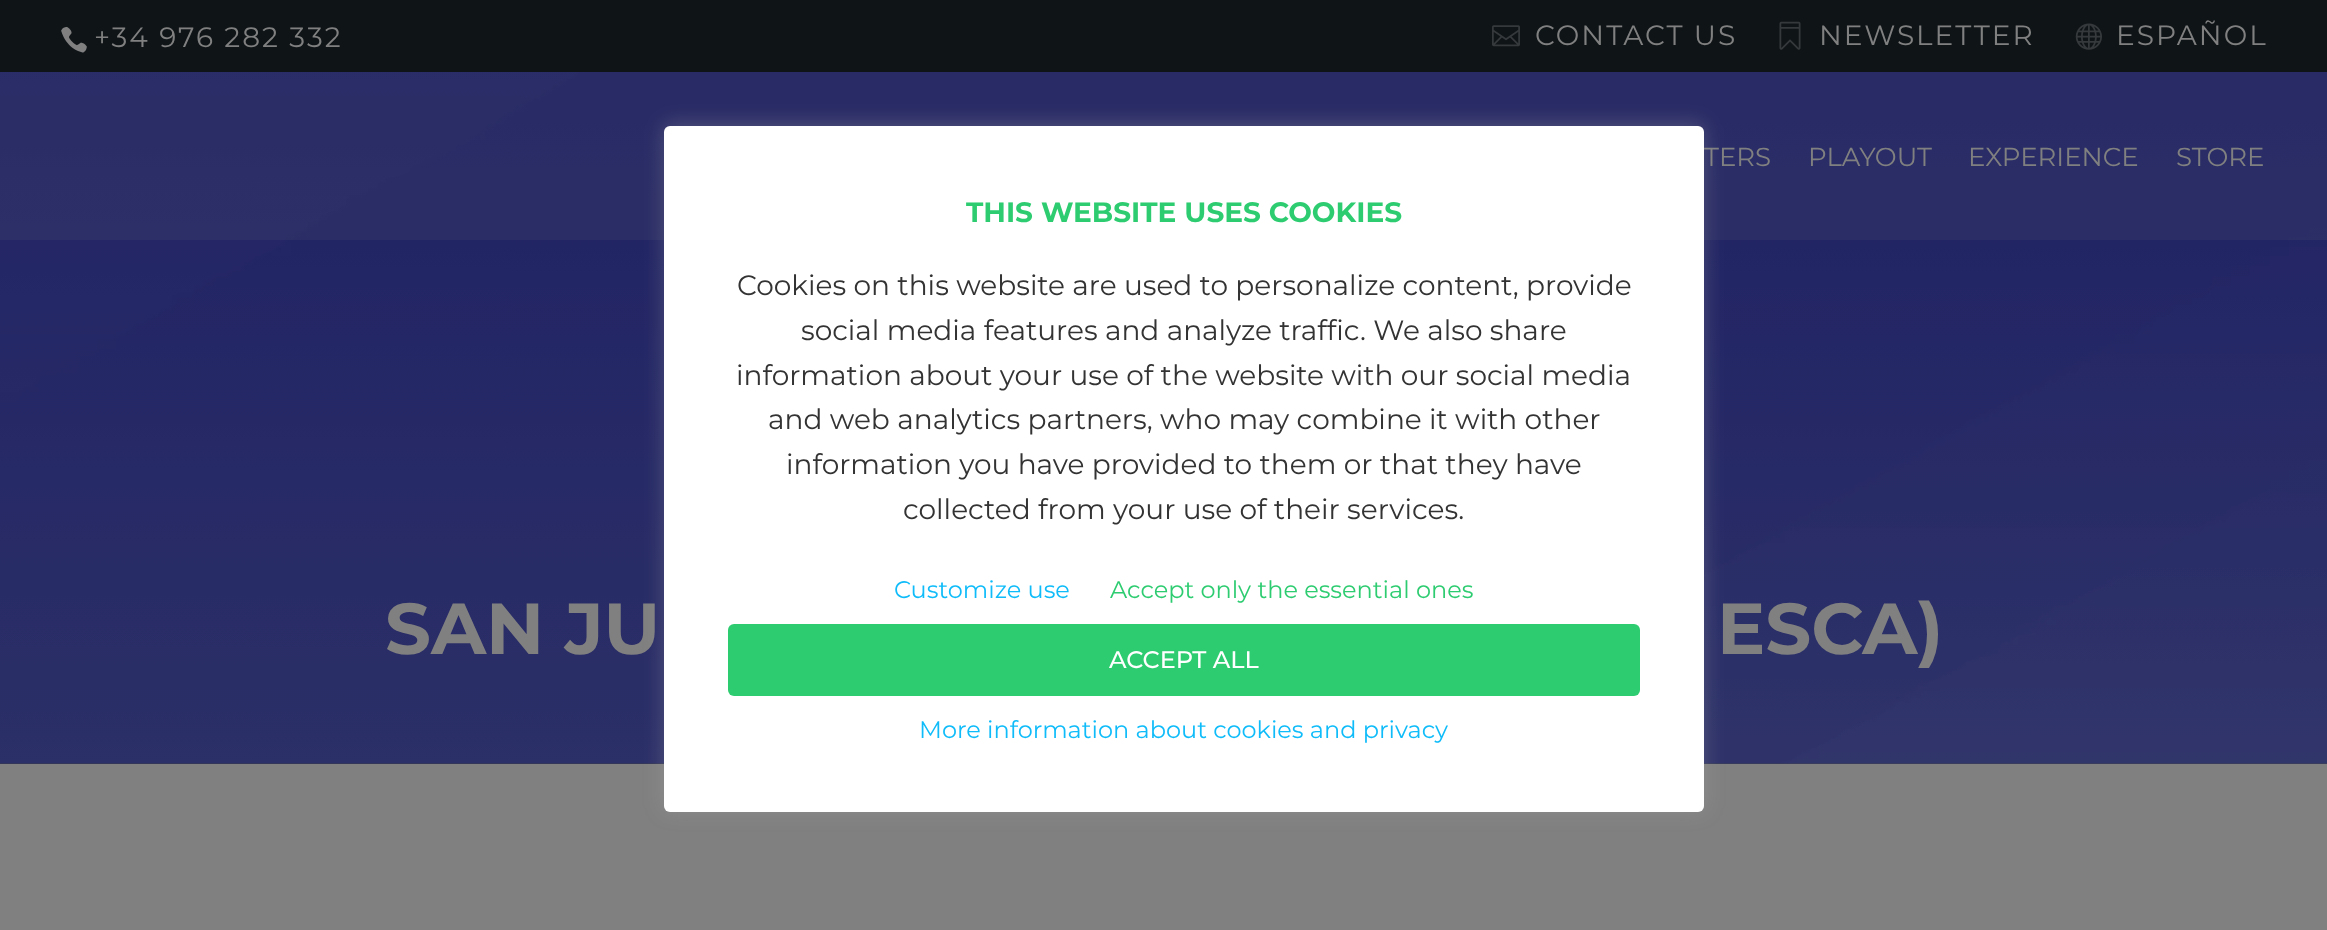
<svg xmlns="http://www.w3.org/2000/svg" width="2327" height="930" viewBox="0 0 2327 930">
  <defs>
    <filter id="blur1" x="-50%" y="-200%" width="200%" height="500%"><feGaussianBlur stdDeviation="10"/></filter>
  </defs>
  <rect width="100%" height="100%" fill="#808080"/>
  <rect x="0" y="0" width="2327" height="72" fill="#0f1417"/>
  <image x="61" y="26" width="26" height="27" href="img1.png"/>
  <text x="94" y="47" font-family="'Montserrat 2'" font-size="28" font-weight="100" letter-spacing="2" fill="#808080">+34 976 282 332</text>
  <image x="1492" y="25" width="28" height="22" href="img2.png"/>
  <text x="1535" y="45" font-family="'Montserrat 2'" font-size="28" font-weight="100" letter-spacing="2" fill="#808080">CONTACT US</text>
  <image x="1779" y="21" width="22" height="29" href="img3.png"/>
  <text x="1819" y="45" font-family="'Montserrat 2'" font-size="28" font-weight="100" letter-spacing="2" fill="#808080">NEWSLETTER</text>
  <image x="2075" y="23" width="27" height="27" href="img4.png"/>
  <text x="2116" y="45" font-family="'Montserrat 2'" font-size="28" font-weight="100" letter-spacing="2" fill="#808080">ESPAÑOL</text>
  <image x="0" y="72" width="2327" height="692" href="img5.png"/>
  <rect x="0" y="72" width="2327" height="168" fill="#808080" fill-opacity="0.1"/>
  <text x="1704" y="166" font-family="'Montserrat 2'" font-size="26" font-weight="100" fill="#808080">TERS</text>
  <text x="1808" y="166" font-family="'Montserrat 2'" font-size="26" font-weight="100" fill="#808080">PLAYOUT</text>
  <text x="1968" y="166" font-family="'Montserrat 2'" font-size="26" font-weight="100" fill="#808080">EXPERIENCE</text>
  <text x="2176" y="166" font-family="'Montserrat 2'" font-size="26" font-weight="100" fill="#808080">STORE</text>
  <text x="385" y="654" font-family="Montserrat" font-size="72" font-weight="100" fill="#808080">SAN JU</text>
  <text x="1717" y="654" font-family="Montserrat" font-size="72" font-weight="100" fill="#808080">ESCA)</text>
  <rect x="664" y="124" width="1040" height="686" rx="6" fill="#acabab" fill-opacity="0.3" filter="url(#blur1)"/>
  <rect x="664" y="126" width="1040" height="686" rx="6" fill="#ffffff"/>
  <text x="966" y="222" font-family="Montserrat" font-size="28" font-weight="100" fill="#2ecc71">THIS WEBSITE USES COOKIES</text>
  <text x="737" y="295" font-family="'Montserrat 2'" font-size="28" font-weight="100" fill="#333333">Cookies on this website are used to personalize content, provide</text>
  <text x="801" y="340" font-family="'Montserrat 2'" font-size="28" font-weight="100" fill="#333333">social media features and analyze traffic. We also share</text>
  <text x="736" y="385" font-family="'Montserrat 2'" font-size="28" font-weight="100" fill="#333333">information about your use of the website with our social media</text>
  <text x="768" y="429" font-family="'Montserrat 2'" font-size="28" font-weight="100" fill="#333333">and web analytics partners, who may combine it with other</text>
  <text x="786" y="474" font-family="'Montserrat 2'" font-size="28" font-weight="100" fill="#333333">information you have provided to them or that they have</text>
  <text x="903" y="519" font-family="'Montserrat 2'" font-size="28" font-weight="100" fill="#333333">collected from your use of their services.</text>
  <text x="894" y="598" font-family="'Montserrat 2'" font-size="24" font-weight="100" fill="#0fbcf9">Customize use</text>
  <text x="1110" y="598" font-family="'Montserrat 2'" font-size="24" font-weight="100" fill="#2ecc71">Accept only the essential ones</text>
  <rect x="728" y="624" width="912" height="72" rx="6" fill="#2ecc71"/>
  <text x="1109" y="668" font-family="'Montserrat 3'" font-size="24" font-weight="100" fill="#ffffff">ACCEPT ALL</text>
  <text x="919" y="738" font-family="'Montserrat 2'" font-size="24" font-weight="100" fill="#0fbcf9">More information about cookies and privacy</text>
</svg>
